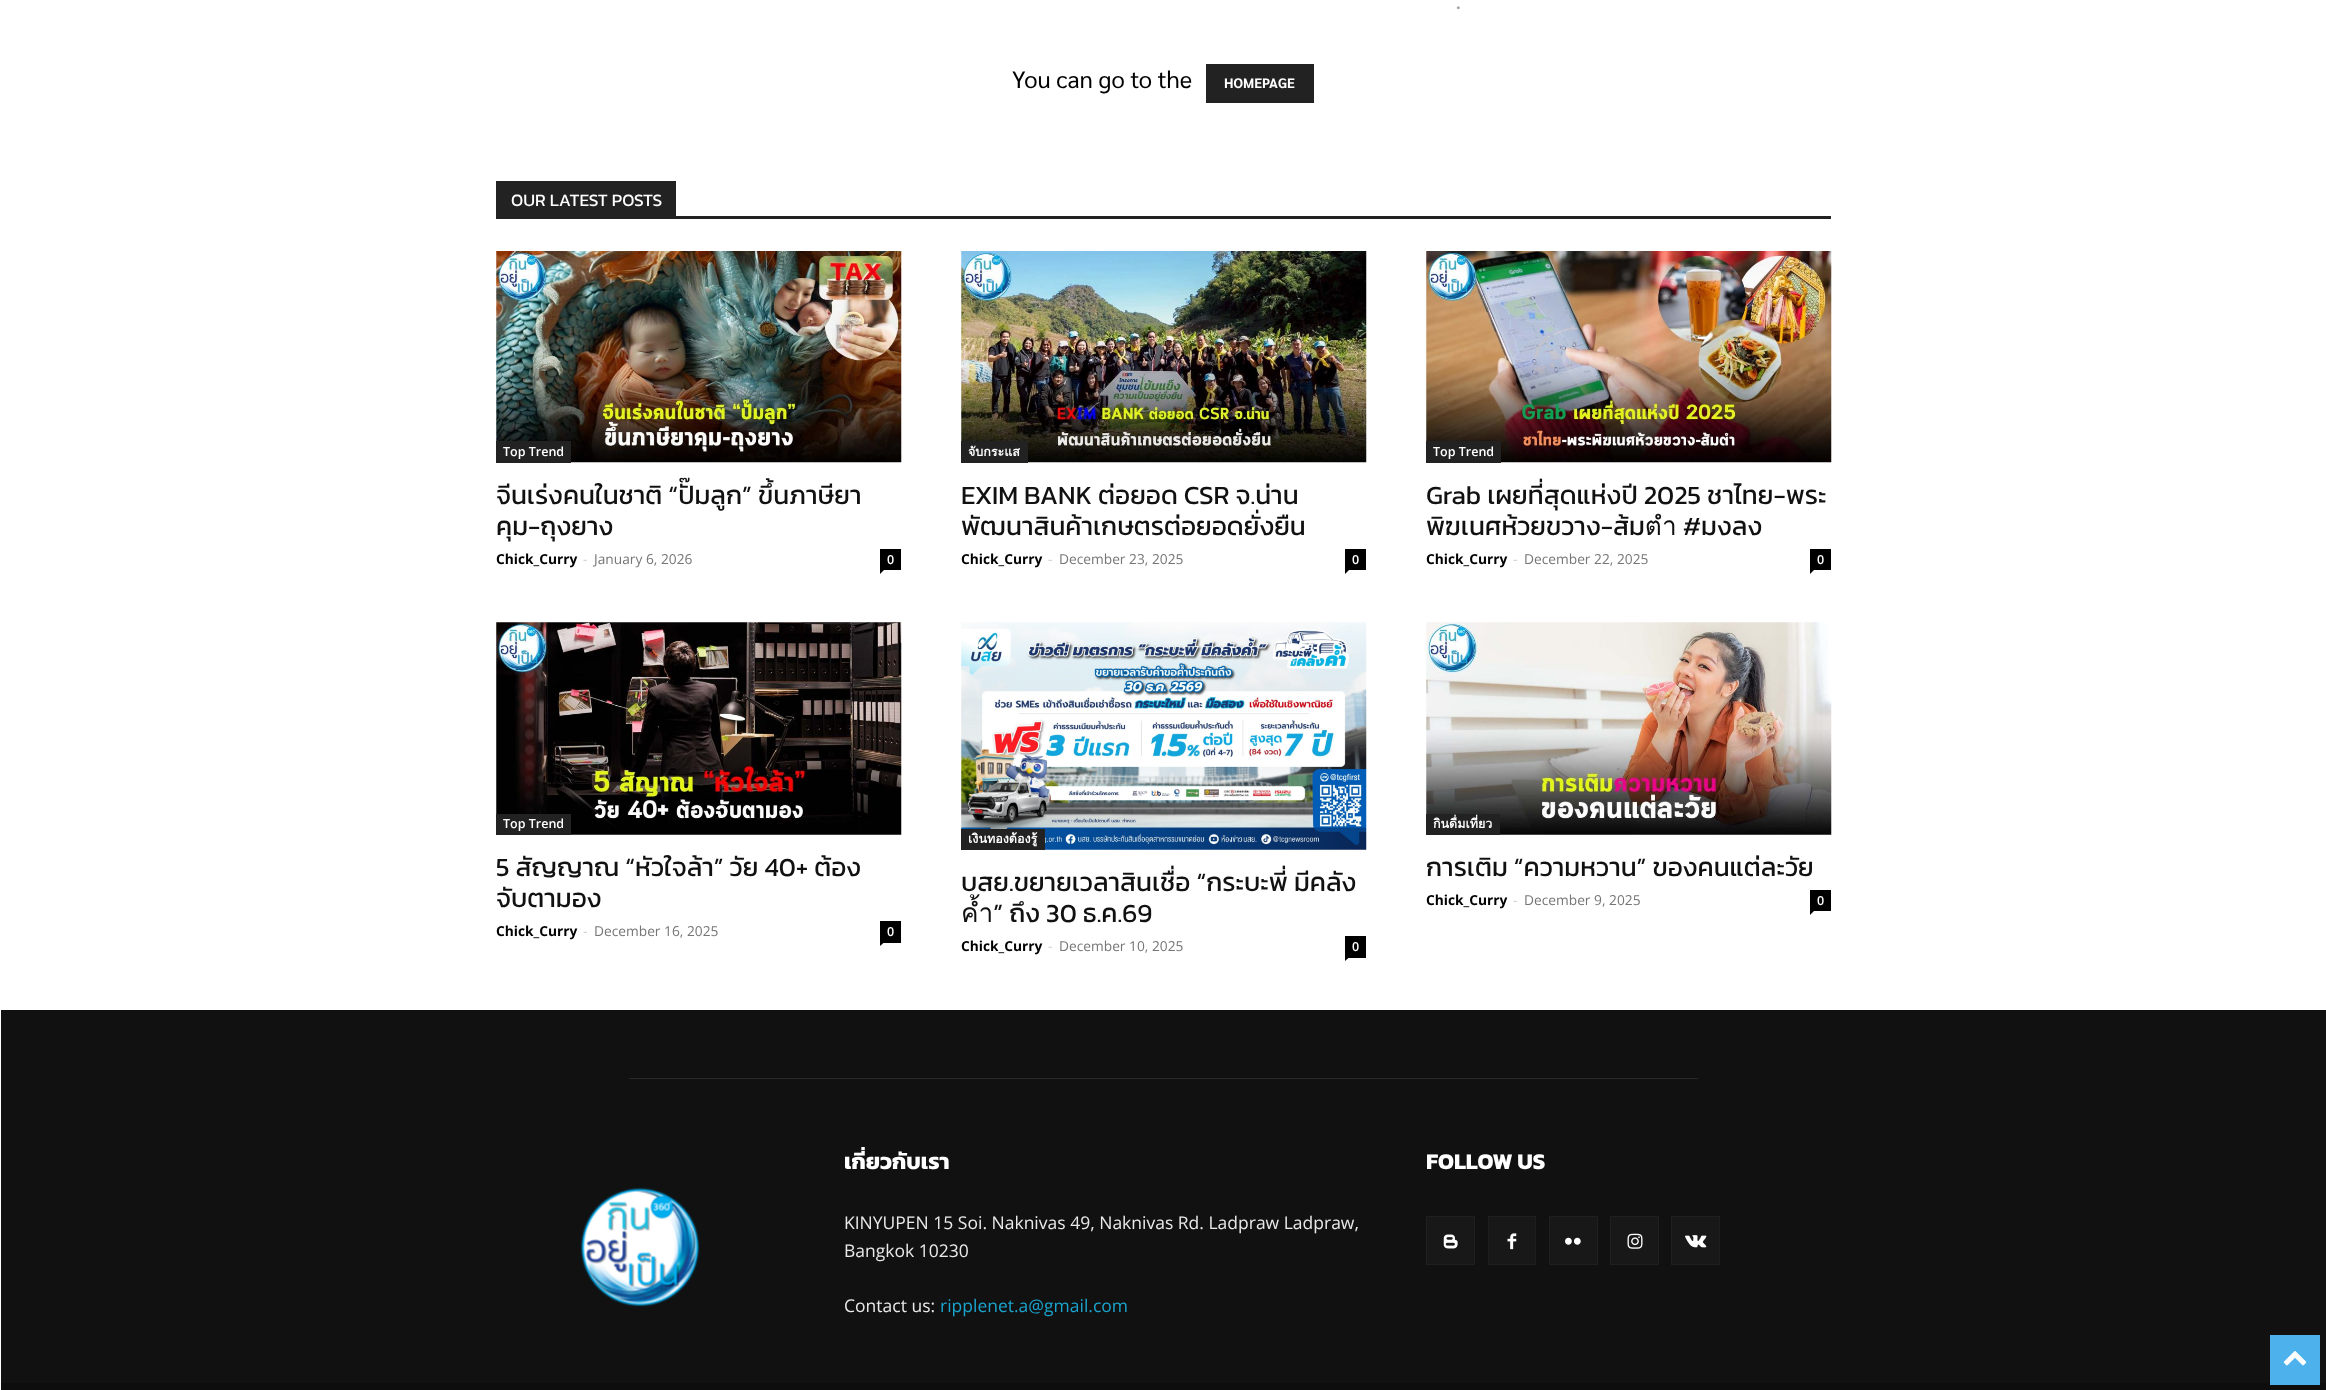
<svg xmlns="http://www.w3.org/2000/svg" width="2326" height="1390" viewBox="0 0 2326 1390">
  <rect width="100%" height="100%" fill="#ffffff"/>
  <text x="1455" y="9" font-family="Roboto" font-size="26.25" fill="#a6a6a6">.</text>
  <text x="1012" y="88" font-family="Sarabun" font-size="23.75" fill="#000000">You can go to the</text>
  <rect x="1206" y="64" width="108" height="39" fill="#222222"/>
  <text x="1224" y="88" font-family="Sarabun" font-size="13.75" font-weight="bold" fill="#ffffff">HOMEPAGE</text>
  <rect x="496" y="216" width="1335" height="3" fill="#222222"/>
  <rect x="496" y="181" width="180" height="35" fill="#222222"/>
  <text x="511" y="206" font-family="Kanit" font-size="17.5" fill="#ffffff">OUR LATEST POSTS</text>
  <image x="496" y="251" width="406" height="212" href="img1.png"/>
  <rect x="496" y="441" width="75" height="22" fill="#222222"/>
  <text x="503" y="456" font-family="Open Sans" font-size="12.5" font-weight="600" fill="#ffffff">Top Trend</text>
  <text x="496" y="504" font-family="Kanit" font-size="26.25" fill="#111111">จีนเร่งคนในชาติ “ปั๊มลูก” ขึ้นภาษียา</text>
  <text x="496" y="535" font-family="Kanit" font-size="26.25" fill="#111111">คุม-ถุงยาง</text>
  <text x="496" y="564" font-family="Open Sans" font-size="13.75" font-weight="bold" fill="#000000">Chick_Curry</text>
  <text x="583" y="564" font-family="Open Sans" font-size="13.75" fill="#cccccc">-</text>
  <text x="594" y="564" font-family="Open Sans" font-size="13.75" fill="#767676">January 6, 2026</text>
  <rect x="880" y="549" width="21" height="21" fill="#000000"/>
  <text x="887" y="564" font-family="Open Sans" font-size="12.5" font-weight="600" fill="#ffffff">0</text>
  <path d="M880 570H884L880 574Z" fill="#000000"/>
  <image x="961" y="251" width="406" height="212" href="img2.png"/>
  <rect x="961" y="441" width="67" height="22" fill="#222222"/>
  <text x="968" y="456" font-family="Loma" font-size="12.5" font-weight="bold" fill="#ffffff">จับกระแส</text>
  <text x="961" y="504" font-family="Kanit" font-size="26.25" fill="#111111">EXIM BANK ต่อยอด CSR จ.น่าน</text>
  <text x="961" y="535" font-family="Kanit" font-size="26.25" fill="#111111">พัฒนาสินค้าเกษตรต่อยอดยั่งยืน</text>
  <text x="961" y="564" font-family="Open Sans" font-size="13.75" font-weight="bold" fill="#000000">Chick_Curry</text>
  <text x="1048" y="564" font-family="Open Sans" font-size="13.75" fill="#cccccc">-</text>
  <text x="1059" y="564" font-family="Open Sans" font-size="13.75" fill="#767676">December 23, 2025</text>
  <rect x="1345" y="549" width="21" height="21" fill="#000000"/>
  <text x="1352" y="564" font-family="Open Sans" font-size="12.5" font-weight="600" fill="#ffffff">0</text>
  <path d="M1345 570H1349L1345 574Z" fill="#000000"/>
  <image x="1426" y="251" width="406" height="212" href="img3.png"/>
  <rect x="1426" y="441" width="75" height="22" fill="#222222"/>
  <text x="1433" y="456" font-family="Open Sans" font-size="12.5" font-weight="600" fill="#ffffff">Top Trend</text>
  <text x="1426" y="504" font-family="Kanit" font-size="26.25" fill="#111111">Grab เผยที่สุดแห่งปี 2025 ชาไทย-พระ</text>
  <text x="1426" y="535" font-family="Kanit" font-size="26.25" fill="#111111">พิฆเนศห้วยขวาง-ส้มตำ #มงลง</text>
  <text x="1426" y="564" font-family="Open Sans" font-size="13.75" font-weight="bold" fill="#000000">Chick_Curry</text>
  <text x="1513" y="564" font-family="Open Sans" font-size="13.75" fill="#cccccc">-</text>
  <text x="1524" y="564" font-family="Open Sans" font-size="13.75" fill="#767676">December 22, 2025</text>
  <rect x="1810" y="549" width="21" height="21" fill="#000000"/>
  <text x="1817" y="564" font-family="Open Sans" font-size="12.5" font-weight="600" fill="#ffffff">0</text>
  <path d="M1810 570H1814L1810 574Z" fill="#000000"/>
  <image x="496" y="622" width="406" height="213" href="img4.png"/>
  <rect x="496" y="814" width="75" height="21" fill="#222222"/>
  <text x="503" y="828" font-family="Open Sans" font-size="12.5" font-weight="600" fill="#ffffff">Top Trend</text>
  <text x="496" y="876" font-family="Kanit" font-size="26.25" fill="#111111">5 สัญญาณ “หัวใจล้า” วัย 40+ ต้อง</text>
  <text x="496" y="907" font-family="Kanit" font-size="26.25" fill="#111111">จับตามอง</text>
  <text x="496" y="936" font-family="Open Sans" font-size="13.75" font-weight="bold" fill="#000000">Chick_Curry</text>
  <text x="583" y="936" font-family="Open Sans" font-size="13.75" fill="#cccccc">-</text>
  <text x="594" y="936" font-family="Open Sans" font-size="13.75" fill="#767676">December 16, 2025</text>
  <rect x="880" y="921" width="21" height="22" fill="#000000"/>
  <text x="887" y="936" font-family="Open Sans" font-size="12.5" font-weight="600" fill="#ffffff">0</text>
  <path d="M880 942.5H884L880 946Z" fill="#000000"/>
  <image x="961" y="622" width="406" height="228" href="img5.png"/>
  <rect x="961" y="829" width="84" height="21" fill="#222222"/>
  <text x="968" y="843" font-family="Loma" font-size="12.5" font-weight="bold" fill="#ffffff">เงินทองต้องรู้</text>
  <text x="961" y="891" font-family="Kanit" font-size="26.25" fill="#111111">บสย.ขยายเวลาสินเชื่อ “กระบะพี่ มีคลัง</text>
  <text x="961" y="922" font-family="Kanit" font-size="26.25" fill="#111111">ค้ำ” ถึง 30 ธ.ค.69</text>
  <text x="961" y="951" font-family="Open Sans" font-size="13.75" font-weight="bold" fill="#000000">Chick_Curry</text>
  <text x="1048" y="951" font-family="Open Sans" font-size="13.75" fill="#cccccc">-</text>
  <text x="1059" y="951" font-family="Open Sans" font-size="13.75" fill="#767676">December 10, 2025</text>
  <rect x="1345" y="936" width="21" height="22" fill="#000000"/>
  <text x="1352" y="951" font-family="Open Sans" font-size="12.5" font-weight="600" fill="#ffffff">0</text>
  <path d="M1345 957.5H1349L1345 961Z" fill="#000000"/>
  <image x="1426" y="622" width="406" height="213" href="img6.png"/>
  <rect x="1426" y="814" width="74" height="21" fill="#222222"/>
  <text x="1433" y="828" font-family="Loma" font-size="12.5" font-weight="bold" fill="#ffffff">กินดื่มเที่ยว</text>
  <text x="1426" y="876" font-family="Kanit" font-size="26.25" fill="#111111">การเติม “ความหวาน” ของคนแต่ละวัย</text>
  <text x="1426" y="905" font-family="Open Sans" font-size="13.75" font-weight="bold" fill="#000000">Chick_Curry</text>
  <text x="1513" y="905" font-family="Open Sans" font-size="13.75" fill="#cccccc">-</text>
  <text x="1524" y="905" font-family="Open Sans" font-size="13.75" fill="#767676">December 9, 2025</text>
  <rect x="1810" y="890" width="21" height="21" fill="#000000"/>
  <text x="1817" y="905" font-family="Open Sans" font-size="12.5" font-weight="600" fill="#ffffff">0</text>
  <path d="M1810 911H1814L1810 915Z" fill="#000000"/>
  <rect x="1" y="1010" width="2325" height="373" fill="#111111"/>
  <rect x="629" y="1078" width="1069" height="1" fill="#292929"/>
  <text x="844" y="1169" font-family="Kanit" font-size="22.5" font-weight="bold" fill="#ffffff">เกี่ยวกับเรา</text>
  <text x="844" y="1229" font-family="Open Sans" font-size="17.5" fill="#eaeaea">KINYUPEN 15 Soi. Naknivas 49, Naknivas Rd. Ladpraw Ladpraw,</text>
  <text x="844" y="1257" font-family="Open Sans" font-size="17.5" fill="#eaeaea">Bangkok 10230</text>
  <text x="844" y="1312" font-family="Open Sans" font-size="17.5" fill="#eaeaea">Contact us:</text>
  <text x="940" y="1312" font-family="Open Sans" font-size="17.5" fill="#1aa4ce">ripplenet.a@gmail.com</text>
  <text x="1426" y="1169" font-family="Kanit" font-size="22.5" font-weight="bold" fill="#ffffff">FOLLOW US</text>
  <rect x="1426.5" y="1216.5" width="48" height="48" fill="#181818" stroke="#1f1f1f"/>
  <image x="1443" y="1234" width="15" height="15" href="img7.png"/>
  <rect x="1488.5" y="1216.5" width="47" height="48" fill="#181818" stroke="#1f1f1f"/>
  <image x="1507" y="1233" width="10" height="17" href="img8.png"/>
  <rect x="1549.5" y="1216.5" width="48" height="48" fill="#181818" stroke="#1f1f1f"/>
  <image x="1565" y="1237" width="16" height="8" href="img9.png"/>
  <rect x="1610.5" y="1216.5" width="48" height="48" fill="#181818" stroke="#1f1f1f"/>
  <image x="1627" y="1233" width="16" height="16" href="img10.png"/>
  <rect x="1671.5" y="1216.5" width="48" height="48" fill="#181818" stroke="#1f1f1f"/>
  <image x="1685" y="1235" width="22" height="13" href="img11.png"/>
  <image x="580" y="1187" width="120" height="120" href="img12.png"/>
  <rect x="1" y="1383" width="2325" height="7" fill="#0d0d0d"/>
  <rect x="2270" y="1335" width="50" height="50" fill="#4db2ec"/>
  <image x="2283" y="1351" width="24" height="15" href="img13.png"/>
</svg>
